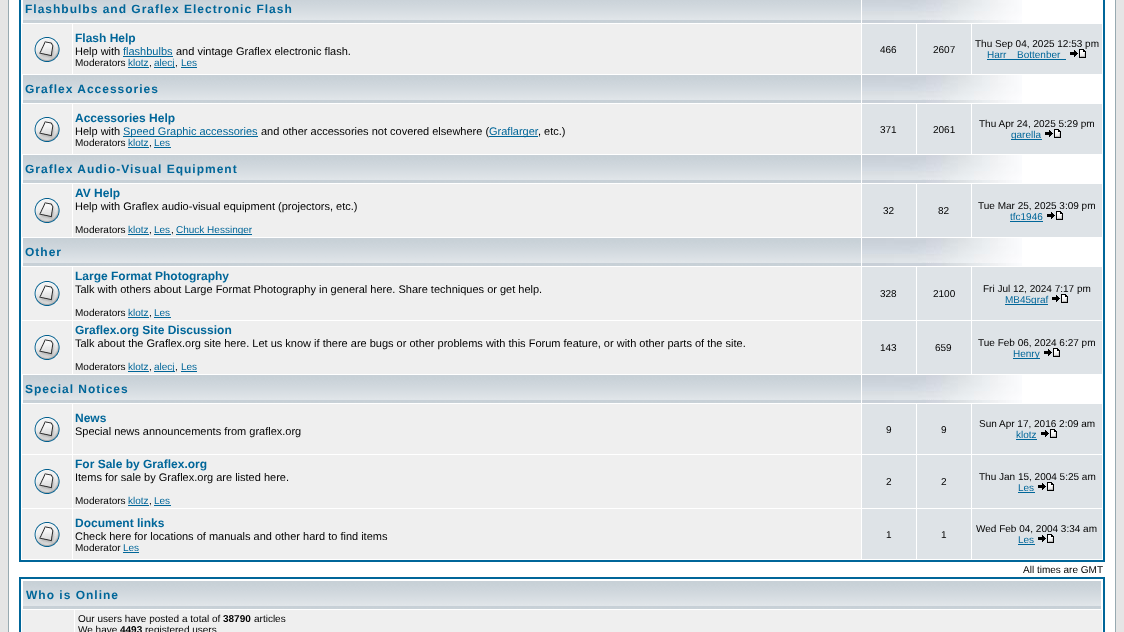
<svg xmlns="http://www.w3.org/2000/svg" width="1124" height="632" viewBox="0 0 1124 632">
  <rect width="100%" height="100%" fill="#e5e5e5"/>
  <rect x="8.5" y="-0.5" width="1107" height="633" fill="#ffffff" stroke="#98aab1"/>
  <rect x="20" y="-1" width="1084" height="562" fill="none" stroke="#006699" stroke-width="2"/>
  <image x="23" y="0" width="838" height="23" href="img1.png"/>
  <text x="25" y="13" font-family="Liberation Sans" font-size="12" font-weight="bold" letter-spacing="1" fill="#006699">Flashbulbs and Graflex Electronic Flash</text>
  <image x="862" y="0" width="160" height="23" href="img2.png"/>
  <rect x="22" y="24" width="50" height="50" fill="#efefef"/>
  <image x="34" y="37" width="26" height="25" href="img3.png"/>
  <rect x="73" y="24" width="788" height="50" fill="#efefef"/>
  <text x="75" y="42" font-family="Liberation Sans" font-size="12" font-weight="bold" fill="#006699">Flash Help</text>
  <text x="75" y="55" font-family="Liberation Sans" font-size="11" fill="#000000">Help with</text>
  <text x="123" y="55" font-family="Liberation Sans" font-size="11" fill="#006699">flashbulbs</text>
  <rect x="123" y="56" width="50" height="1" fill="#006699"/>
  <text x="176" y="55" font-family="Liberation Sans" font-size="11" fill="#000000">and vintage Graflex electronic flash.</text>
  <text x="75" y="66" font-family="Liberation Sans" font-size="10" fill="#000000">Moderators</text>
  <text x="128" y="66" font-family="Liberation Sans" font-size="10" fill="#006699">klotz</text>
  <text x="149" y="66" font-family="Liberation Sans" font-size="10" fill="#000000">,</text>
  <rect x="128" y="67" width="21" height="1" fill="#006699"/>
  <rect x="154" y="67" width="21" height="1" fill="#006699"/>
  <text x="154" y="66" font-family="Liberation Sans" font-size="10" fill="#006699">alecj</text>
  <text x="175" y="66" font-family="Liberation Sans" font-size="10" fill="#000000">,</text>
  <rect x="181" y="67" width="16" height="1" fill="#006699"/>
  <text x="181" y="66" font-family="Liberation Sans" font-size="10" fill="#006699">Les</text>
  <rect x="862" y="24" width="54" height="50" fill="#dee3e7"/>
  <text x="880" y="53" font-family="Liberation Sans" font-size="10" fill="#000000">466</text>
  <rect x="917" y="24" width="54" height="50" fill="#dee3e7"/>
  <text x="933" y="53" font-family="Liberation Sans" font-size="10" fill="#000000">2607</text>
  <rect x="972" y="24" width="130" height="50" fill="#dee3e7"/>
  <text x="975" y="47" font-family="Liberation Sans" font-size="10" fill="#000000">Thu Sep 04, 2025 12:53 pm</text>
  <text x="987" y="58" font-family="Liberation Sans" font-size="10" fill="#006699">Harr</text>
  <rect x="987" y="59" width="79" height="1" fill="#006699"/>
  <text x="1017" y="58" font-family="Liberation Sans" font-size="10" fill="#006699">Bottenber</text>
  <image x="1070" y="49" width="16" height="9" href="img4.png"/>
  <image x="23" y="75" width="838" height="28" href="img5.png"/>
  <text x="25" y="93" font-family="Liberation Sans" font-size="12" font-weight="bold" letter-spacing="1" fill="#006699">Graflex Accessories</text>
  <image x="862" y="75" width="160" height="28" href="img6.png"/>
  <rect x="22" y="104" width="50" height="50" fill="#efefef"/>
  <image x="34" y="117" width="26" height="25" href="img3.png"/>
  <rect x="73" y="104" width="788" height="50" fill="#efefef"/>
  <text x="75" y="122" font-family="Liberation Sans" font-size="12" font-weight="bold" fill="#006699">Accessories Help</text>
  <text x="75" y="135" font-family="Liberation Sans" font-size="11" fill="#000000">Help with</text>
  <rect x="123" y="136" width="135" height="1" fill="#006699"/>
  <text x="123" y="135" font-family="Liberation Sans" font-size="11" fill="#006699">Speed Graphic accessories</text>
  <text x="261" y="135" font-family="Liberation Sans" font-size="11" fill="#000000">and other accessories not covered elsewhere (</text>
  <rect x="489" y="136" width="49" height="1" fill="#006699"/>
  <text x="489" y="135" font-family="Liberation Sans" font-size="11" fill="#006699">Graflarger</text>
  <text x="538" y="135" font-family="Liberation Sans" font-size="11" fill="#000000">, etc.)</text>
  <text x="75" y="146" font-family="Liberation Sans" font-size="10" fill="#000000">Moderators</text>
  <text x="128" y="146" font-family="Liberation Sans" font-size="10" fill="#006699">klotz</text>
  <text x="149" y="146" font-family="Liberation Sans" font-size="10" fill="#000000">,</text>
  <rect x="128" y="147" width="21" height="1" fill="#006699"/>
  <rect x="154" y="147" width="17" height="1" fill="#006699"/>
  <text x="154" y="146" font-family="Liberation Sans" font-size="10" fill="#006699">Les</text>
  <rect x="862" y="104" width="54" height="50" fill="#dee3e7"/>
  <text x="880" y="133" font-family="Liberation Sans" font-size="10" fill="#000000">371</text>
  <rect x="917" y="104" width="54" height="50" fill="#dee3e7"/>
  <text x="933" y="133" font-family="Liberation Sans" font-size="10" fill="#000000">2061</text>
  <rect x="972" y="104" width="130" height="50" fill="#dee3e7"/>
  <text x="979" y="127" font-family="Liberation Sans" font-size="10" fill="#000000">Thu Apr 24, 2025 5:29 pm</text>
  <rect x="1011" y="139" width="31" height="1" fill="#006699"/>
  <text x="1011" y="138" font-family="Liberation Sans" font-size="10" fill="#006699">garella</text>
  <image x="1045" y="129" width="16" height="9" href="img7.png"/>
  <image x="23" y="155" width="838" height="28" href="img5.png"/>
  <text x="25" y="173" font-family="Liberation Sans" font-size="12" font-weight="bold" letter-spacing="1" fill="#006699">Graflex Audio-Visual Equipment</text>
  <image x="862" y="155" width="160" height="28" href="img6.png"/>
  <rect x="22" y="184" width="50" height="53" fill="#efefef"/>
  <image x="34" y="198" width="26" height="25" href="img3.png"/>
  <rect x="73" y="184" width="788" height="53" fill="#efefef"/>
  <text x="75" y="197" font-family="Liberation Sans" font-size="12" font-weight="bold" fill="#006699">AV Help</text>
  <text x="75" y="210" font-family="Liberation Sans" font-size="11" fill="#000000">Help with Graflex audio-visual equipment (projectors, etc.)</text>
  <text x="75" y="233" font-family="Liberation Sans" font-size="10" fill="#000000">Moderators</text>
  <text x="128" y="233" font-family="Liberation Sans" font-size="10" fill="#006699">klotz</text>
  <text x="149" y="233" font-family="Liberation Sans" font-size="10" fill="#000000">,</text>
  <rect x="128" y="234" width="21" height="1" fill="#006699"/>
  <text x="154" y="233" font-family="Liberation Sans" font-size="10" fill="#006699">Les</text>
  <text x="171" y="233" font-family="Liberation Sans" font-size="10" fill="#000000">,</text>
  <rect x="154" y="234" width="17" height="1" fill="#006699"/>
  <rect x="176" y="234" width="76" height="1" fill="#006699"/>
  <text x="176" y="233" font-family="Liberation Sans" font-size="10" fill="#006699">Chuck Hessinger</text>
  <rect x="862" y="184" width="54" height="53" fill="#dee3e7"/>
  <text x="883" y="214" font-family="Liberation Sans" font-size="10" fill="#000000">32</text>
  <rect x="917" y="184" width="54" height="53" fill="#dee3e7"/>
  <text x="938" y="214" font-family="Liberation Sans" font-size="10" fill="#000000">82</text>
  <rect x="972" y="184" width="130" height="53" fill="#dee3e7"/>
  <text x="978" y="209" font-family="Liberation Sans" font-size="10" fill="#000000">Tue Mar 25, 2025 3:09 pm</text>
  <text x="1010" y="220" font-family="Liberation Sans" font-size="10" fill="#006699">tfc1946</text>
  <rect x="1010" y="221" width="33" height="1" fill="#006699"/>
  <image x="1047" y="211" width="16" height="9" href="img7.png"/>
  <image x="23" y="238" width="838" height="28" href="img5.png"/>
  <text x="25" y="256" font-family="Liberation Sans" font-size="12" font-weight="bold" letter-spacing="1" fill="#006699">Other</text>
  <image x="862" y="238" width="160" height="28" href="img6.png"/>
  <rect x="22" y="267" width="50" height="53" fill="#efefef"/>
  <image x="34" y="281" width="26" height="25" href="img3.png"/>
  <rect x="73" y="267" width="788" height="53" fill="#efefef"/>
  <text x="75" y="280" font-family="Liberation Sans" font-size="12" font-weight="bold" fill="#006699">Large Format Photography</text>
  <text x="75" y="293" font-family="Liberation Sans" font-size="11" fill="#000000">Talk with others about Large Format Photography in general here. Share techniques or get help.</text>
  <text x="75" y="316" font-family="Liberation Sans" font-size="10" fill="#000000">Moderators</text>
  <text x="128" y="316" font-family="Liberation Sans" font-size="10" fill="#006699">klotz</text>
  <text x="149" y="316" font-family="Liberation Sans" font-size="10" fill="#000000">,</text>
  <rect x="128" y="317" width="21" height="1" fill="#006699"/>
  <rect x="154" y="317" width="17" height="1" fill="#006699"/>
  <text x="154" y="316" font-family="Liberation Sans" font-size="10" fill="#006699">Les</text>
  <rect x="862" y="267" width="54" height="53" fill="#dee3e7"/>
  <text x="880" y="297" font-family="Liberation Sans" font-size="10" fill="#000000">328</text>
  <rect x="917" y="267" width="54" height="53" fill="#dee3e7"/>
  <text x="933" y="297" font-family="Liberation Sans" font-size="10" fill="#000000">2100</text>
  <rect x="972" y="267" width="130" height="53" fill="#dee3e7"/>
  <text x="983" y="292" font-family="Liberation Sans" font-size="10" fill="#000000">Fri Jul 12, 2024 7:17 pm</text>
  <rect x="1005" y="304" width="43" height="1" fill="#006699"/>
  <text x="1005" y="303" font-family="Liberation Sans" font-size="10" fill="#006699">MB45graf</text>
  <image x="1052" y="294" width="16" height="9" href="img7.png"/>
  <rect x="22" y="321" width="50" height="53" fill="#efefef"/>
  <image x="34" y="335" width="26" height="25" href="img3.png"/>
  <rect x="73" y="321" width="788" height="53" fill="#efefef"/>
  <text x="75" y="334" font-family="Liberation Sans" font-size="12" font-weight="bold" fill="#006699">Graflex.org Site Discussion</text>
  <text x="75" y="347" font-family="Liberation Sans" font-size="11" fill="#000000">Talk about the Graflex.org site here. Let us know if there are bugs or other problems with this Forum feature, or with other parts of the site.</text>
  <text x="75" y="370" font-family="Liberation Sans" font-size="10" fill="#000000">Moderators</text>
  <text x="128" y="370" font-family="Liberation Sans" font-size="10" fill="#006699">klotz</text>
  <text x="149" y="370" font-family="Liberation Sans" font-size="10" fill="#000000">,</text>
  <rect x="128" y="371" width="21" height="1" fill="#006699"/>
  <rect x="154" y="371" width="21" height="1" fill="#006699"/>
  <text x="154" y="370" font-family="Liberation Sans" font-size="10" fill="#006699">alecj</text>
  <text x="175" y="370" font-family="Liberation Sans" font-size="10" fill="#000000">,</text>
  <rect x="181" y="371" width="16" height="1" fill="#006699"/>
  <text x="181" y="370" font-family="Liberation Sans" font-size="10" fill="#006699">Les</text>
  <rect x="862" y="321" width="54" height="53" fill="#dee3e7"/>
  <text x="880" y="351" font-family="Liberation Sans" font-size="10" fill="#000000">143</text>
  <rect x="917" y="321" width="54" height="53" fill="#dee3e7"/>
  <text x="935" y="351" font-family="Liberation Sans" font-size="10" fill="#000000">659</text>
  <rect x="972" y="321" width="130" height="53" fill="#dee3e7"/>
  <text x="978" y="346" font-family="Liberation Sans" font-size="10" fill="#000000">Tue Feb 06, 2024 6:27 pm</text>
  <rect x="1013" y="358" width="27" height="1" fill="#006699"/>
  <text x="1013" y="357" font-family="Liberation Sans" font-size="10" fill="#006699">Henry</text>
  <image x="1044" y="348" width="16" height="9" href="img7.png"/>
  <image x="23" y="375" width="838" height="28" href="img5.png"/>
  <text x="25" y="393" font-family="Liberation Sans" font-size="12" font-weight="bold" letter-spacing="1" fill="#006699">Special Notices</text>
  <image x="862" y="375" width="160" height="28" href="img6.png"/>
  <rect x="22" y="404" width="50" height="50" fill="#efefef"/>
  <image x="34" y="417" width="26" height="25" href="img3.png"/>
  <rect x="73" y="404" width="788" height="50" fill="#efefef"/>
  <text x="75" y="422" font-family="Liberation Sans" font-size="12" font-weight="bold" fill="#006699">News</text>
  <text x="75" y="435" font-family="Liberation Sans" font-size="11" fill="#000000">Special news announcements from graflex.org</text>
  <rect x="862" y="404" width="54" height="50" fill="#dee3e7"/>
  <text x="886" y="433" font-family="Liberation Sans" font-size="10" fill="#000000">9</text>
  <rect x="917" y="404" width="54" height="50" fill="#dee3e7"/>
  <text x="941" y="433" font-family="Liberation Sans" font-size="10" fill="#000000">9</text>
  <rect x="972" y="404" width="130" height="50" fill="#dee3e7"/>
  <text x="979" y="427" font-family="Liberation Sans" font-size="10" fill="#000000">Sun Apr 17, 2016 2:09 am</text>
  <text x="1016" y="438" font-family="Liberation Sans" font-size="10" fill="#006699">klotz</text>
  <rect x="1016" y="439" width="21" height="1" fill="#006699"/>
  <image x="1041" y="429" width="16" height="9" href="img7.png"/>
  <rect x="22" y="455" width="50" height="53" fill="#efefef"/>
  <image x="34" y="469" width="26" height="25" href="img3.png"/>
  <rect x="73" y="455" width="788" height="53" fill="#efefef"/>
  <text x="75" y="468" font-family="Liberation Sans" font-size="12" font-weight="bold" fill="#006699">For Sale by Graflex.org</text>
  <text x="75" y="481" font-family="Liberation Sans" font-size="11" fill="#000000">Items for sale by Graflex.org are listed here.</text>
  <text x="75" y="504" font-family="Liberation Sans" font-size="10" fill="#000000">Moderators</text>
  <text x="128" y="504" font-family="Liberation Sans" font-size="10" fill="#006699">klotz</text>
  <text x="149" y="504" font-family="Liberation Sans" font-size="10" fill="#000000">,</text>
  <rect x="128" y="505" width="21" height="1" fill="#006699"/>
  <rect x="154" y="505" width="17" height="1" fill="#006699"/>
  <text x="154" y="504" font-family="Liberation Sans" font-size="10" fill="#006699">Les</text>
  <rect x="862" y="455" width="54" height="53" fill="#dee3e7"/>
  <text x="886" y="485" font-family="Liberation Sans" font-size="10" fill="#000000">2</text>
  <rect x="917" y="455" width="54" height="53" fill="#dee3e7"/>
  <text x="941" y="485" font-family="Liberation Sans" font-size="10" fill="#000000">2</text>
  <rect x="972" y="455" width="130" height="53" fill="#dee3e7"/>
  <text x="979" y="480" font-family="Liberation Sans" font-size="10" fill="#000000">Thu Jan 15, 2004 5:25 am</text>
  <text x="1018" y="491" font-family="Liberation Sans" font-size="10" fill="#006699">Les</text>
  <rect x="1018" y="492" width="17" height="1" fill="#006699"/>
  <image x="1038" y="482" width="16" height="9" href="img7.png"/>
  <rect x="22" y="509" width="50" height="50" fill="#efefef"/>
  <image x="34" y="522" width="26" height="25" href="img3.png"/>
  <rect x="73" y="509" width="788" height="50" fill="#efefef"/>
  <text x="75" y="527" font-family="Liberation Sans" font-size="12" font-weight="bold" fill="#006699">Document links</text>
  <text x="75" y="540" font-family="Liberation Sans" font-size="11" fill="#000000">Check here for locations of manuals and other hard to find items</text>
  <text x="75" y="551" font-family="Liberation Sans" font-size="10" fill="#000000">Moderator</text>
  <text x="123" y="551" font-family="Liberation Sans" font-size="10" fill="#006699">Les</text>
  <rect x="123" y="552" width="16" height="1" fill="#006699"/>
  <rect x="862" y="509" width="54" height="50" fill="#dee3e7"/>
  <text x="886" y="538" font-family="Liberation Sans" font-size="10" fill="#000000">1</text>
  <rect x="917" y="509" width="54" height="50" fill="#dee3e7"/>
  <text x="941" y="538" font-family="Liberation Sans" font-size="10" fill="#000000">1</text>
  <rect x="972" y="509" width="130" height="50" fill="#dee3e7"/>
  <text x="976" y="532" font-family="Liberation Sans" font-size="10" fill="#000000">Wed Feb 04, 2004 3:34 am</text>
  <text x="1018" y="543" font-family="Liberation Sans" font-size="10" fill="#006699">Les</text>
  <rect x="1018" y="544" width="17" height="1" fill="#006699"/>
  <image x="1038" y="534" width="16" height="9" href="img7.png"/>
  <text x="1023" y="573" font-family="Liberation Sans" font-size="10" fill="#000000">All times are GMT</text>
  <rect x="20" y="578" width="1084" height="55" fill="none" stroke="#006699" stroke-width="2"/>
  <image x="23" y="581" width="1078" height="28" href="img8.png"/>
  <text x="26" y="599" font-family="Liberation Sans" font-size="12" font-weight="bold" letter-spacing="1" fill="#006699">Who is Online</text>
  <rect x="22" y="610" width="52" height="22" fill="#efefef"/>
  <rect x="75" y="610" width="1027" height="22" fill="#efefef"/>
  <text x="78" y="622" font-family="Liberation Sans" font-size="10" fill="#000000">Our users have posted a total of</text>
  <text x="223" y="622" font-family="Liberation Sans" font-size="10" font-weight="bold" fill="#000000">38790</text>
  <text x="254" y="622" font-family="Liberation Sans" font-size="10" fill="#000000">articles</text>
  <text x="78" y="633" font-family="Liberation Sans" font-size="10" fill="#000000">We have</text>
  <text x="120" y="633" font-family="Liberation Sans" font-size="10" font-weight="bold" fill="#000000">4493</text>
  <text x="145" y="633" font-family="Liberation Sans" font-size="10" fill="#000000">registered users</text>
</svg>
